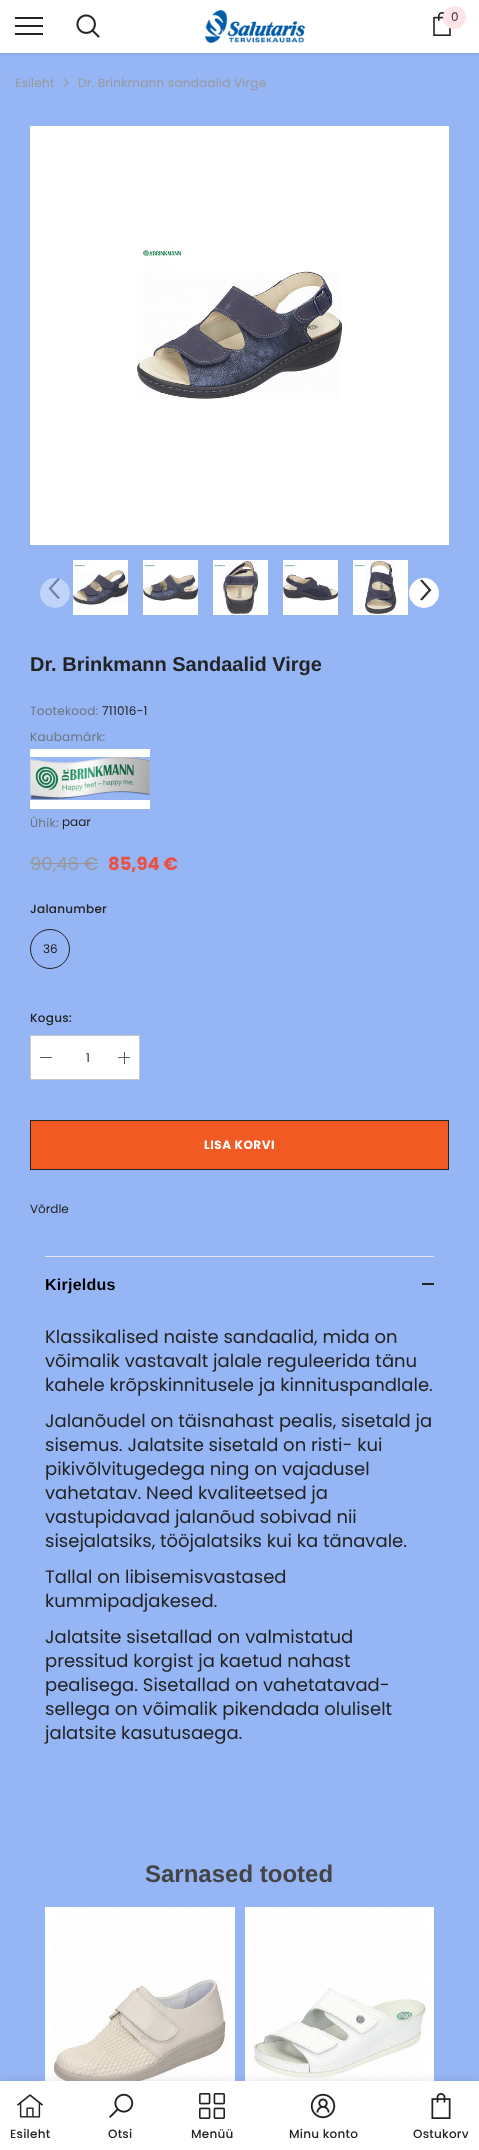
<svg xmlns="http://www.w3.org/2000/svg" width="479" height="2150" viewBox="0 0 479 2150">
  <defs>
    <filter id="blur1" x="-50%" y="-200%" width="200%" height="500%"><feGaussianBlur stdDeviation="1.5"/></filter>
    <filter id="blur2" x="-50%" y="-200%" width="200%" height="500%"><feGaussianBlur stdDeviation="4.5"/></filter>
  </defs>
  <rect width="100%" height="100%" fill="#96b5f5"/>
  <rect x="0" y="1" width="479" height="53" fill="#000000" fill-opacity="0.1" filter="url(#blur1)"/>
  <rect x="0" y="0" width="479" height="53" fill="#ffffff"/>
  <rect x="15" y="25" width="28" height="2" fill="#232323"/>
  <rect x="15" y="17" width="28" height="2" fill="#232323"/>
  <rect x="15" y="33" width="28" height="2" fill="#232323"/>
  <image x="76" y="14" width="24" height="24" href="img1.png"/>
  <image x="205" y="10" width="100" height="33" href="img2.png"/>
  <image x="433" y="12" width="18" height="24" href="img3.png"/>
  <circle cx="454.5" cy="17.5" r="11.5" fill="#ffe5e8"/>
  <text x="451" y="21" font-family="Poppins" font-size="12" letter-spacing="0.25" fill="#323232">0</text>
  <text x="15" y="87" font-family="Poppins" font-size="12" letter-spacing="0.25" fill="#999999">Esileht</text>
  <image x="64" y="78" width="5" height="10" href="img4.png"/>
  <text x="78" y="87" font-family="Poppins" font-size="12" letter-spacing="0.25" fill="#999999">Dr. Brinkmann sandaalid Virge</text>
  <image x="30" y="126" width="419" height="419" href="img5.png"/>
  <circle cx="55" cy="593" r="15" fill="#c0d3f9"/>
  <path d="M58 599L60 598L51.5 588.5L60 579L58 578L48.5 588.5L49 589Z" fill="#6e81a7"/>
  <image x="73" y="560" width="55" height="55" href="img6.png"/>
  <image x="143" y="560" width="55" height="55" href="img7.png"/>
  <image x="213" y="560" width="55" height="55" href="img8.png"/>
  <image x="283" y="560" width="55" height="55" href="img9.png"/>
  <image x="353" y="560" width="55" height="55" href="img10.png"/>
  <circle cx="424" cy="593" r="15" fill="#ffffff"/>
  <path d="M422 579.5L420 580.5L428.5 590L420 599.5L422 600.5L431.5 590L431 589.5Z" fill="#323232"/>
  <text x="30" y="671" font-family="Liberation Sans" font-size="20" font-weight="bold" fill="#232323">Dr. Brinkmann Sandaalid Virge</text>
  <text x="30" y="715" font-family="Poppins" font-size="12" letter-spacing="0.25" fill="#6c757d">Tootekood:</text>
  <text x="102" y="715" font-family="Poppins" font-size="12" letter-spacing="0.25" fill="#232323">711016-1</text>
  <text x="30" y="741" font-family="Poppins" font-size="12" letter-spacing="0.25" fill="#6c757d">Kaubamärk:</text>
  <image x="30" y="749" width="120" height="60" href="img11.png"/>
  <text x="30" y="827" font-family="Poppins" font-size="12" letter-spacing="0.25" fill="#6c757d">Ühik:</text>
  <text x="62" y="826" font-family="Poppins" font-size="12" fill="#232323">paar</text>
  <text x="30" y="870" font-family="Poppins" font-size="18" fill="#999999">90,46 €</text>
  <rect x="30" y="863" width="68" height="1" fill="#969696"/>
  <text x="108" y="870" font-family="Poppins" font-size="18" font-weight="bold" fill="#e95144">85,94 €</text>
  <text x="30" y="913" font-family="Poppins" font-size="12" font-weight="500" letter-spacing="0.25" fill="#232323">Jalanumber</text>
  <circle cx="50" cy="949" r="19.5" fill="none" stroke="#232323"/>
  <text x="43" y="953" font-family="Poppins" font-size="12" fill="#232323">36</text>
  <text x="30" y="1022" font-family="Poppins" font-size="12" font-weight="500" letter-spacing="0.25" fill="#232323">Kogus:</text>
  <rect x="30.5" y="1035.5" width="109" height="44" fill="#ffffff" stroke="#c7c7c7"/>
  <rect x="40" y="1057" width="12" height="1" fill="#5a5a5a"/>
  <text x="86" y="1062" font-family="Poppins" font-size="12" letter-spacing="0.25" fill="#232323">1</text>
  <rect x="118" y="1057" width="12" height="1" fill="#5a5a5a"/>
  <rect x="124" y="1052" width="1" height="12" fill="#5a5a5a"/>
  <rect x="30.5" y="1120.5" width="418" height="49" fill="#f15a23" stroke="#242424"/>
  <text x="204" y="1149" font-family="Poppins" font-size="12" font-weight="bold" letter-spacing="0.5" fill="#ffffff">LISA KORVI</text>
  <text x="30" y="1213" font-family="Poppins" font-size="12" fill="#232323">Võrdle</text>
  <rect x="45" y="1256" width="389" height="1" fill="#e6e6e6"/>
  <text x="45" y="1290" font-family="Liberation Sans" font-size="16" font-weight="bold" letter-spacing="0.25" fill="#000000">Kirjeldus</text>
  <rect x="422" y="1283" width="12" height="2" fill="#232323"/>
  <text x="45" y="1343" font-family="Poppins" font-size="18" fill="#232323">Klassikalised naiste sandaalid, mida on</text>
  <text x="45" y="1367" font-family="Poppins" font-size="18" fill="#232323">võimalik vastavalt jalale reguleerida tänu</text>
  <text x="45" y="1391" font-family="Poppins" font-size="18" fill="#232323">kahele krõpskinnitusele ja kinnituspandlale.</text>
  <text x="45" y="1427" font-family="Poppins" font-size="18" fill="#232323">Jalanõudel on täisnahast pealis, sisetald ja</text>
  <text x="45" y="1451" font-family="Poppins" font-size="18" fill="#232323">sisemus. Jalatsite sisetald on risti- kui</text>
  <text x="45" y="1475" font-family="Poppins" font-size="18" fill="#232323">pikivõlvitugedega ning on vajadusel</text>
  <text x="45" y="1499" font-family="Poppins" font-size="18" fill="#232323">vahetatav. Need kvaliteetsed ja</text>
  <text x="45" y="1523" font-family="Poppins" font-size="18" fill="#232323">vastupidavad jalanõud sobivad nii</text>
  <text x="45" y="1547" font-family="Poppins" font-size="18" fill="#232323">sisejalatsiks, tööjalatsiks kui ka tänavale.</text>
  <text x="45" y="1583" font-family="Poppins" font-size="18" fill="#232323">Tallal on libisemisvastased</text>
  <text x="45" y="1607" font-family="Poppins" font-size="18" fill="#232323">kummipadjakesed.</text>
  <text x="45" y="1643" font-family="Poppins" font-size="18" fill="#232323">Jalatsite sisetallad on valmistatud</text>
  <text x="45" y="1667" font-family="Poppins" font-size="18" fill="#232323">pressitud korgist ja kaetud nahast</text>
  <text x="45" y="1691" font-family="Poppins" font-size="18" fill="#232323">pealisega. Sisetallad on vahetatavad-</text>
  <text x="45" y="1715" font-family="Poppins" font-size="18" fill="#232323">sellega on võimalik pikendada oluliselt</text>
  <text x="45" y="1739" font-family="Poppins" font-size="18" fill="#232323">jalatsite kasutusaega.</text>
  <text x="145" y="1882" font-family="Liberation Sans" font-size="24" font-weight="bold" fill="#444444">Sarnased tooted</text>
  <image x="45" y="1907" width="190" height="174" href="img12.png"/>
  <image x="245" y="1907" width="189" height="174" href="img13.png"/>
  <rect x="0" y="2081" width="479" height="69" fill="#000000" fill-opacity="0.12" filter="url(#blur2)"/>
  <rect x="0" y="2081" width="479" height="69" fill="#ffffff"/>
  <image x="17" y="2094" width="26" height="24" href="img14.png"/>
  <text x="10" y="2138" font-family="Poppins" font-size="12" font-weight="500" letter-spacing="0.25" fill="#232323">Esileht</text>
  <image x="109" y="2093" width="25" height="25" href="img15.png"/>
  <text x="108" y="2138" font-family="Poppins" font-size="12" font-weight="500" letter-spacing="0.25" fill="#232323">Otsi</text>
  <image x="199" y="2093" width="26" height="26" href="img16.png"/>
  <text x="191" y="2138" font-family="Poppins" font-size="12" font-weight="500" letter-spacing="0.25" fill="#232323">Menüü</text>
  <image x="310" y="2093" width="26" height="26" href="img17.png"/>
  <text x="289" y="2138" font-family="Poppins" font-size="12" font-weight="500" letter-spacing="0.25" fill="#232323">Minu konto</text>
  <image x="431" y="2093" width="20" height="26" href="img18.png"/>
  <text x="413" y="2138" font-family="Poppins" font-size="12" font-weight="500" letter-spacing="0.25" fill="#232323">Ostukorv</text>
</svg>
